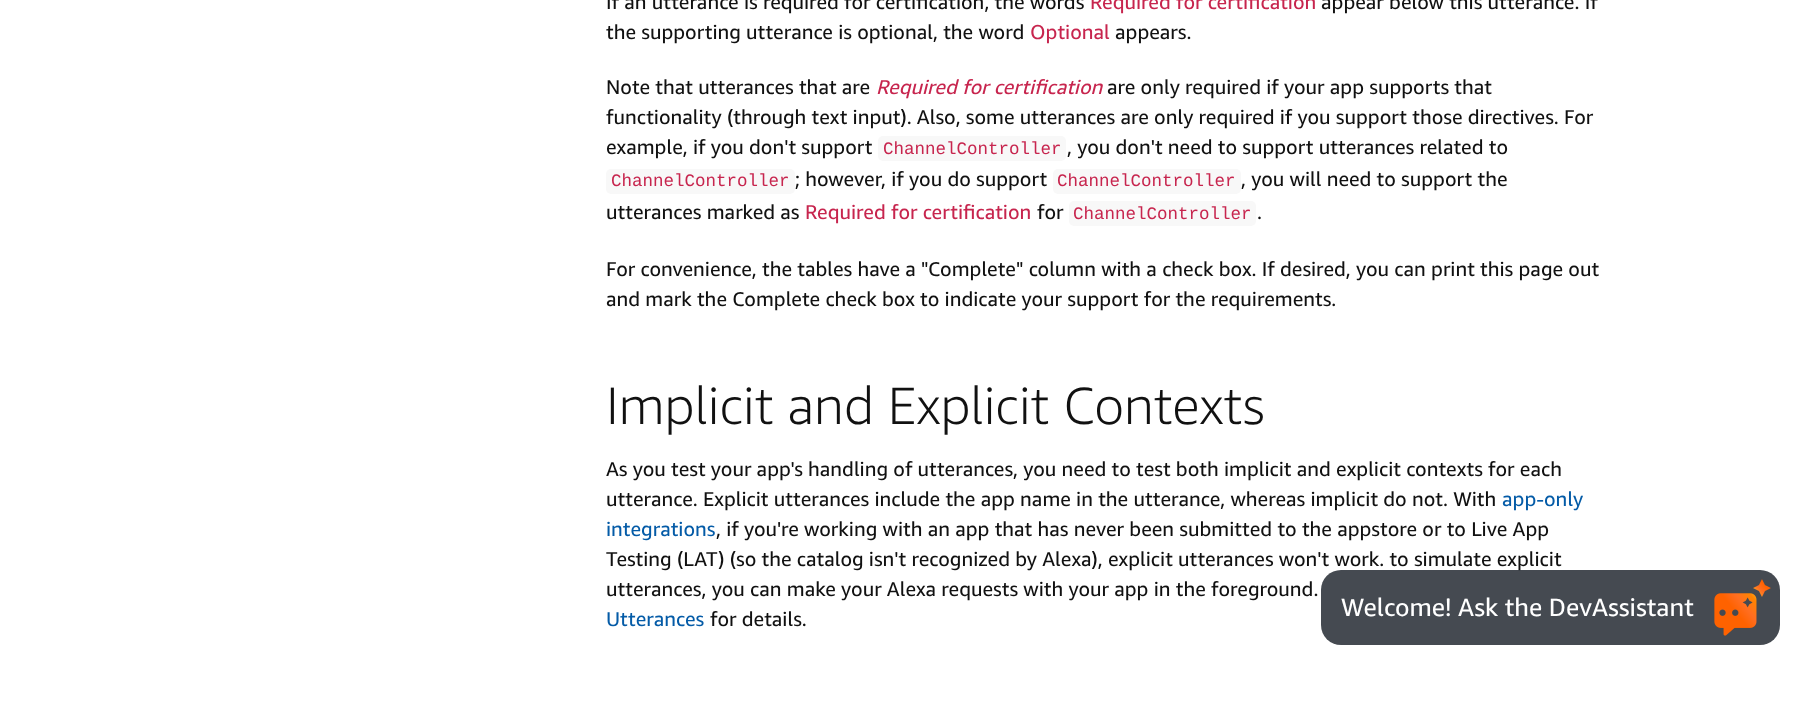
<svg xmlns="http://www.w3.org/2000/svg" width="1799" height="719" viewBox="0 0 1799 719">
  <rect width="100%" height="100%" fill="#ffffff"/>
  <text x="606" y="9" font-family="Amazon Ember" font-size="20" fill="#111111">If an utterance is required for certification, the words</text>
  <text x="1090" y="9" font-family="Amazon Ember" font-size="20" fill="#c7254e">Required for certification</text>
  <text x="1321" y="9" font-family="Amazon Ember" font-size="20" fill="#111111">appear below this utterance. If</text>
  <text x="606" y="39" font-family="Amazon Ember" font-size="20" fill="#111111">the supporting utterance is optional, the word</text>
  <text x="1030" y="39" font-family="Amazon Ember" font-size="20" fill="#c7254e">Optional</text>
  <text x="1115" y="39" font-family="Amazon Ember" font-size="20" fill="#111111">appears.</text>
  <text x="606" y="94" font-family="Amazon Ember" font-size="20" fill="#111111">Note that utterances that are</text>
  <text x="876" y="94" font-family="Amazon Ember" font-size="20" font-style="italic" fill="#c7254e">Required for certification</text>
  <text x="1107" y="94" font-family="Amazon Ember" font-size="20" fill="#111111">are only required if your app supports that</text>
  <text x="606" y="124" font-family="Amazon Ember" font-size="20" fill="#111111">functionality (through text input). Also, some utterances are only required if you support those directives. For</text>
  <text x="606" y="154" font-family="Amazon Ember" font-size="20" fill="#111111">example, if you don't support</text>
  <rect x="878" y="136" width="188" height="25" rx="5" fill="#f8f8f8"/>
  <text x="883" y="154" font-family="Liberation Mono" font-size="17.5" fill="#c7254e">ChannelController</text>
  <text x="1067" y="154" font-family="Amazon Ember" font-size="20" fill="#111111">, you don't need to support utterances related to</text>
  <rect x="606" y="169" width="189" height="25" rx="5" fill="#f8f8f8"/>
  <text x="611" y="186" font-family="Liberation Mono" font-size="17.5" fill="#c7254e">ChannelController</text>
  <text x="795" y="186" font-family="Amazon Ember" font-size="20" fill="#111111">; however, if you do support</text>
  <rect x="1053" y="169" width="188" height="25" rx="5" fill="#f8f8f8"/>
  <text x="1057" y="186" font-family="Liberation Mono" font-size="17.5" fill="#c7254e">ChannelController</text>
  <text x="1241" y="186" font-family="Amazon Ember" font-size="20" fill="#111111">, you will need to support the</text>
  <text x="606" y="219" font-family="Amazon Ember" font-size="20" fill="#111111">utterances marked as</text>
  <text x="805" y="219" font-family="Amazon Ember" font-size="20" fill="#c7254e">Required for certification</text>
  <text x="1037" y="219" font-family="Amazon Ember" font-size="20" fill="#111111">for</text>
  <rect x="1069" y="201" width="187" height="25" rx="5" fill="#f8f8f8"/>
  <text x="1073" y="219" font-family="Liberation Mono" font-size="17.5" fill="#c7254e">ChannelController</text>
  <text x="1257" y="219" font-family="Amazon Ember" font-size="20" fill="#111111">.</text>
  <text x="606" y="276" font-family="Amazon Ember" font-size="20" fill="#111111">For convenience, the tables have a "Complete" column with a check box. If desired, you can print this page out</text>
  <text x="606" y="306" font-family="Amazon Ember" font-size="20" fill="#111111">and mark the Complete check box to indicate your support for the requirements.</text>
  <text x="606" y="424" font-family="Amazon Ember" font-size="52.5" font-weight="300" fill="#111111">Implicit and Explicit Contexts</text>
  <text x="606" y="476" font-family="Amazon Ember" font-size="20" fill="#111111">As you test your app's handling of utterances, you need to test both implicit and explicit contexts for each</text>
  <text x="606" y="506" font-family="Amazon Ember" font-size="20" fill="#111111">utterance. Explicit utterances include the app name in the utterance, whereas implicit do not. With</text>
  <text x="1502" y="506" font-family="Amazon Ember" font-size="20" fill="#045ba7">app-only</text>
  <text x="606" y="536" font-family="Amazon Ember" font-size="20" fill="#045ba7">integrations</text>
  <text x="716" y="536" font-family="Amazon Ember" font-size="20" fill="#111111">, if you're working with an app that has never been submitted to the appstore or to Live App</text>
  <text x="606" y="566" font-family="Amazon Ember" font-size="20" fill="#111111">Testing (LAT) (so the catalog isn't recognized by Alexa), explicit utterances won't work. to simulate explicit</text>
  <text x="606" y="596" font-family="Amazon Ember" font-size="20" fill="#111111">utterances, you can make your Alexa requests with your app in the foreground.</text>
  <text x="606" y="626" font-family="Amazon Ember" font-size="20" fill="#045ba7">Utterances</text>
  <text x="710" y="626" font-family="Amazon Ember" font-size="20" fill="#111111">for details.</text>
  <rect x="1321" y="570" width="459" height="75" rx="20" fill="#161d26" fill-opacity="0.8"/>
  <text x="1341" y="616" font-family="Amazon Ember" font-size="25" fill="#ffffff">Welcome! Ask the DevAssistant</text>
  <image x="1714" y="579" width="57" height="57" href="img1.png"/>
</svg>
